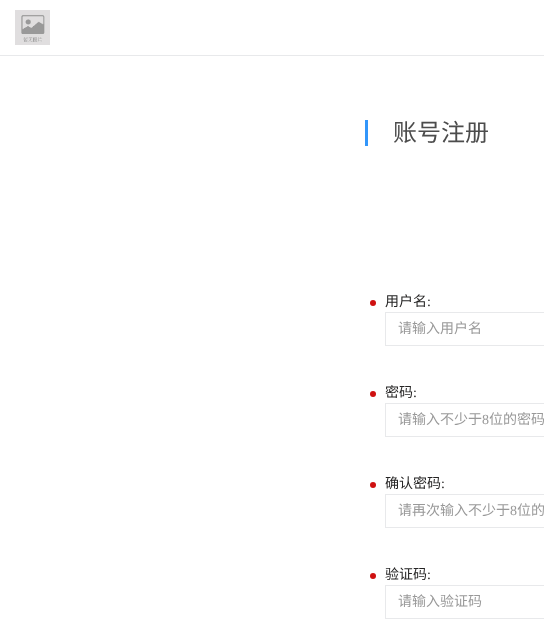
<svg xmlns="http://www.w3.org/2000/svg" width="544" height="638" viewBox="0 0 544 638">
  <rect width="100%" height="100%" fill="#ffffff"/>
  <rect x="0" y="55" width="544" height="1" fill="#e8e9eb"/>
  <image x="15" y="10" width="35" height="35" href="img1.png"/>
  <rect x="365" y="120" width="3" height="26" fill="#3296fa"/>
  <text x="393" y="141" font-family="Noto Sans CJK SC" font-size="24" fill="#4c4c4c">账号注册</text>
  <circle cx="373" cy="303" r="3" fill="#cf1010"/>
  <text x="385" y="306" font-family="Noto Sans CJK SC" font-size="14" fill="#252424">用户名</text>
  <text x="427" y="306" font-family="Liberation Serif" font-size="14" fill="#252424">:</text>
  <rect x="385.5" y="312.5" width="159" height="33" fill="none" stroke="#e8e9eb"/>
  <text x="398" y="333" font-family="Noto Sans CJK SC" font-size="14" fill="#999999">请输入用户名</text>
  <circle cx="373" cy="394" r="3" fill="#cf1010"/>
  <text x="385" y="397" font-family="Noto Sans CJK SC" font-size="14" fill="#252424">密码</text>
  <text x="413" y="397" font-family="Liberation Serif" font-size="14" fill="#252424">:</text>
  <rect x="385.5" y="403.5" width="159" height="33" fill="none" stroke="#e8e9eb"/>
  <text x="398" y="424" font-family="Noto Sans CJK SC" font-size="14" fill="#999999">请输入不少于</text>
  <text x="482" y="424" font-family="Liberation Serif" font-size="14" fill="#999999">8</text>
  <text x="489" y="424" font-family="Noto Sans CJK SC" font-size="14" fill="#999999">位的密码</text>
  <circle cx="373" cy="485" r="3" fill="#cf1010"/>
  <text x="385" y="488" font-family="Noto Sans CJK SC" font-size="14" fill="#252424">确认密码</text>
  <text x="441" y="488" font-family="Liberation Serif" font-size="14" fill="#252424">:</text>
  <rect x="385.5" y="494.5" width="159" height="33" fill="none" stroke="#e8e9eb"/>
  <text x="398" y="515" font-family="Noto Sans CJK SC" font-size="14" fill="#999999">请再次输入不少于</text>
  <text x="510" y="515" font-family="Liberation Serif" font-size="14" fill="#999999">8</text>
  <text x="517" y="515" font-family="Noto Sans CJK SC" font-size="14" fill="#999999">位的</text>
  <circle cx="373" cy="576" r="3" fill="#cf1010"/>
  <text x="385" y="579" font-family="Noto Sans CJK SC" font-size="14" fill="#252424">验证码</text>
  <text x="427" y="579" font-family="Liberation Serif" font-size="14" fill="#252424">:</text>
  <rect x="385.5" y="585.5" width="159" height="33" fill="none" stroke="#e8e9eb"/>
  <text x="398" y="606" font-family="Noto Sans CJK SC" font-size="14" fill="#999999">请输入验证码</text>
</svg>
